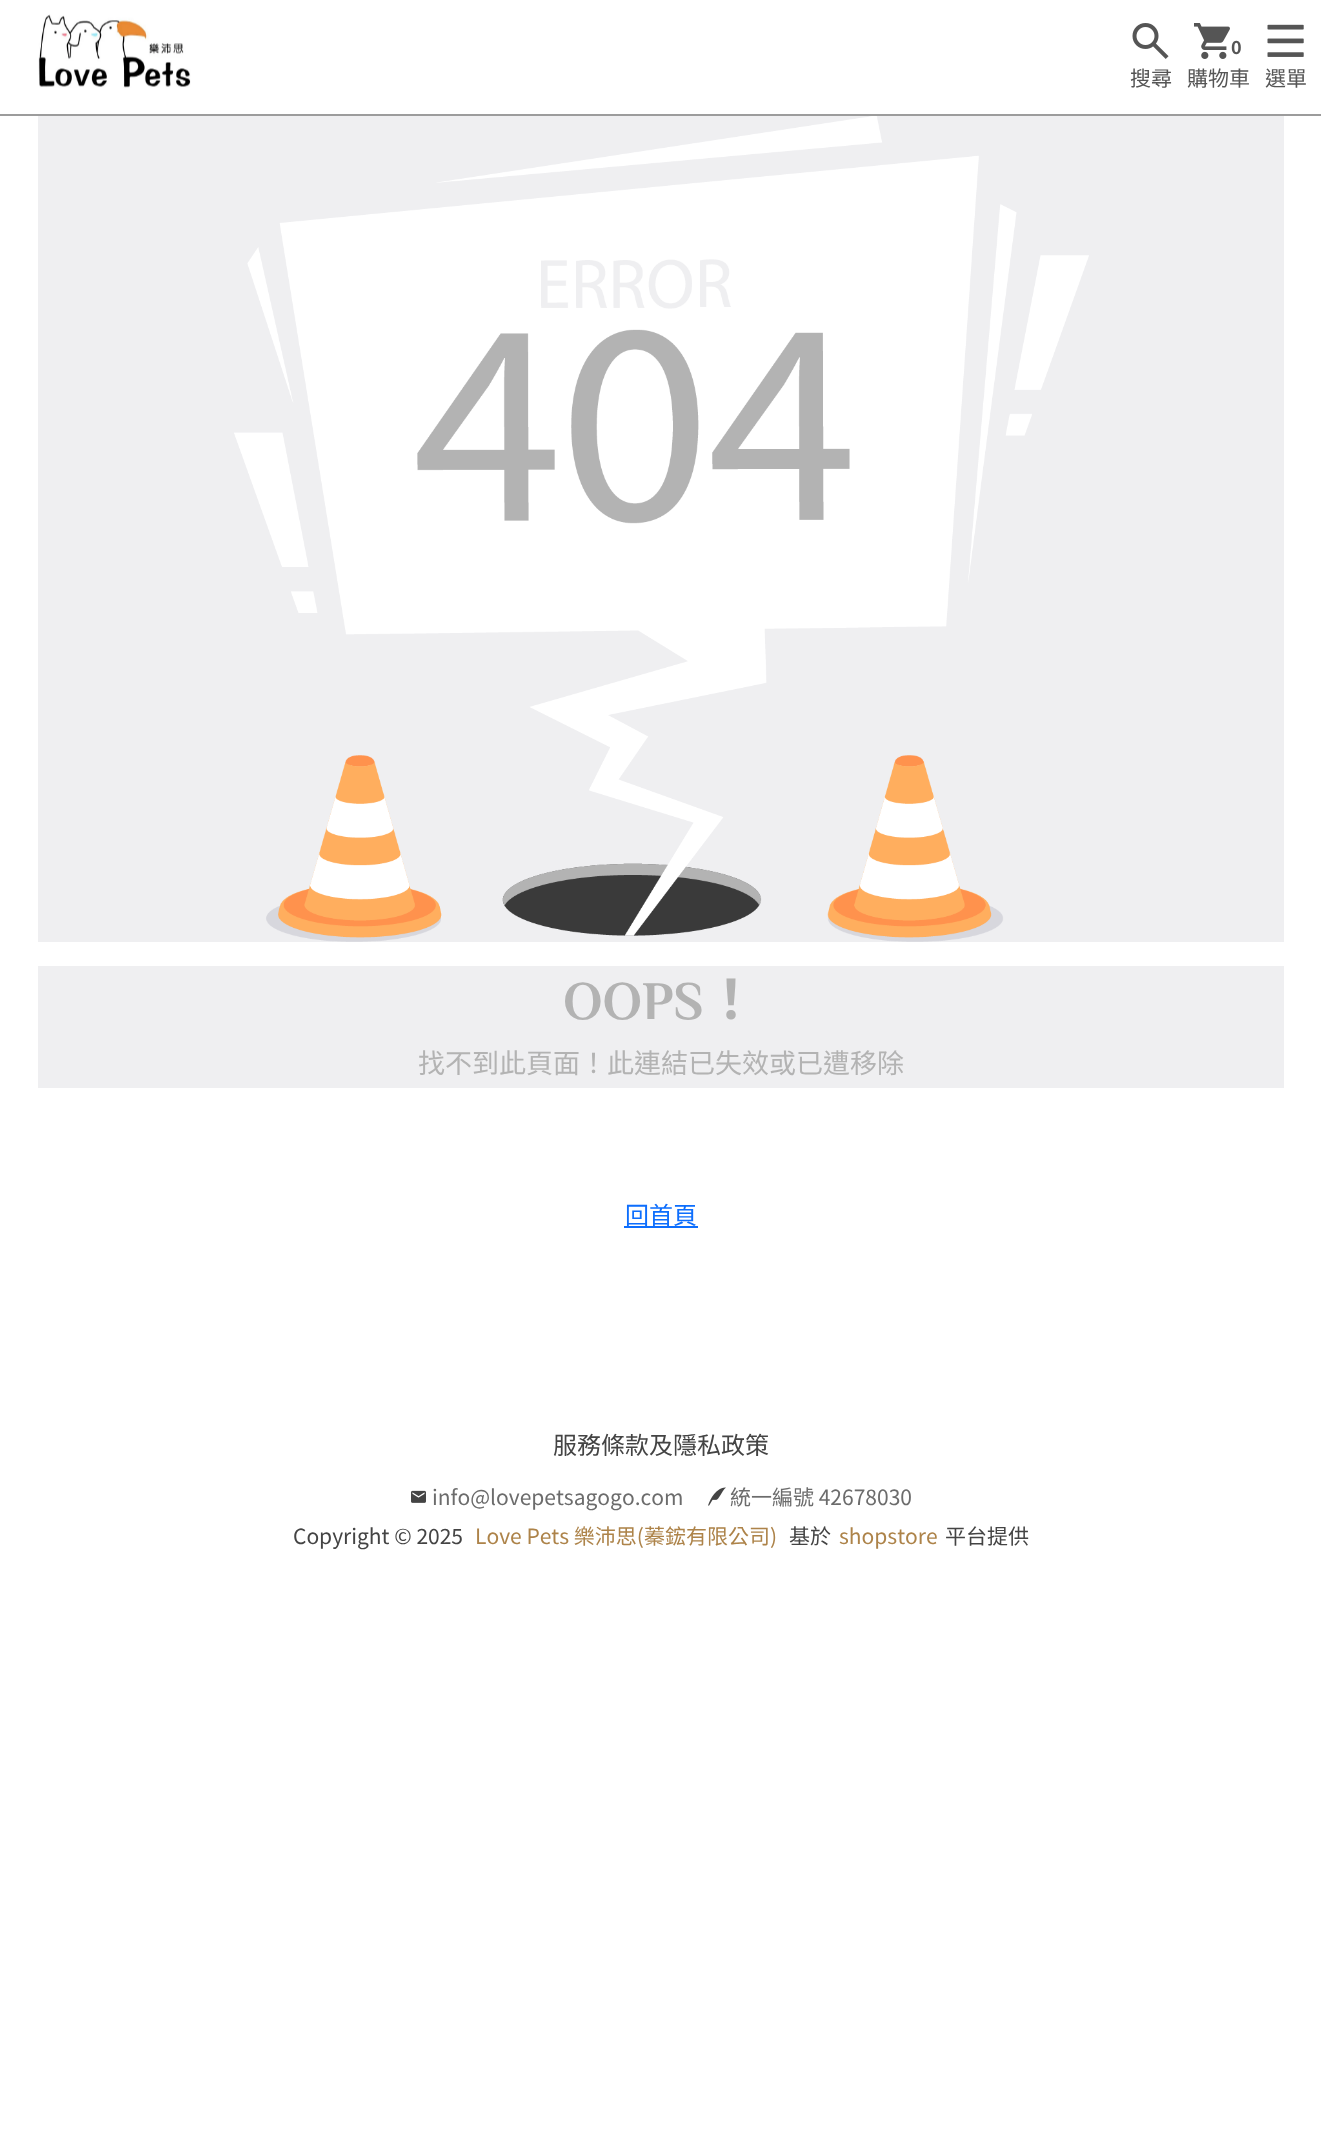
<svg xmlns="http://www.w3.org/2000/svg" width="1321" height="2146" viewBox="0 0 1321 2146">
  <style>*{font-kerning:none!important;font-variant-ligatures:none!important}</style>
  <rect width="100%" height="100%" fill="#ffffff"/>
  <rect x="0" y="114" width="1321" height="2" fill="#9c9c9c"/>
  <image x="38" y="14" width="153" height="74" href="img1.png"/>
  <image x="1132" y="23" width="37" height="36" href="img2.png"/>
  <text x="1130" y="86" font-family="Noto Sans TC" font-size="21" fill="#555555">搜尋</text>
  <image x="1194" y="23" width="36" height="36" href="img3.png"/>
  <text x="1231" y="54" font-family="Noto Sans TC" font-size="18" font-weight="bold" fill="#555555">0</text>
  <text x="1187" y="86" font-family="Noto Sans TC" font-size="21" fill="#555555">購物車</text>
  <image x="1267" y="24" width="37" height="33" href="img4.png"/>
  <text x="1265" y="86" font-family="Noto Sans TC" font-size="21" fill="#555555">選單</text>
  <rect x="38" y="116" width="1246" height="826" fill="#efeff1"/>
  <image x="234" y="116" width="855" height="826" href="img5.png"/>
  <rect x="38" y="966" width="1246" height="122" fill="#efeff1"/>
  <text x="563" y="1019" font-family="El Messiri" font-size="54" font-weight="bold" fill="#b3b3b3">OOPS</text>
  <text x="704" y="1019" font-family="Noto Sans TC" font-size="54" font-weight="bold" fill="#b3b3b3">！</text>
  <text x="418" y="1073" font-family="Noto Sans TC" font-size="27" fill="#b3b3b3">找不到此頁面！此連結已失效或已遭移除</text>
  <text x="625" y="1224" font-family="Noto Sans TC" font-size="24" fill="#0d6efd">回首頁</text>
  <rect x="624" y="1226" width="74" height="2" fill="#0d6efd"/>
  <text x="553" y="1454" font-family="Noto Sans TC" font-size="24" fill="#444444">服務條款及隱私政策</text>
  <image x="411" y="1490" width="15" height="13" href="img6.png"/>
  <text x="432" y="1505" font-family="Noto Sans TC" font-size="21" fill="#6c6c6c">info@lovepetsagogo.com</text>
  <image x="708" y="1487" width="18" height="19" href="img7.png"/>
  <text x="730" y="1505" font-family="Noto Sans TC" font-size="21" fill="#6c6c6c">統一編號 42678030</text>
  <text x="293" y="1544" font-family="Noto Sans TC" font-size="21" fill="#444444">Copyright © 2025</text>
  <text x="475" y="1544" font-family="Noto Sans TC" font-size="21" fill="#ad8349">Love Pets 樂沛思(蓁鋐有限公司)</text>
  <text x="789" y="1544" font-family="Noto Sans TC" font-size="21" fill="#444444">基於</text>
  <text x="839" y="1544" font-family="Noto Sans TC" font-size="21" fill="#ad8349">shopstore</text>
  <text x="945" y="1544" font-family="Noto Sans TC" font-size="21" fill="#444444">平台提供</text>
</svg>
